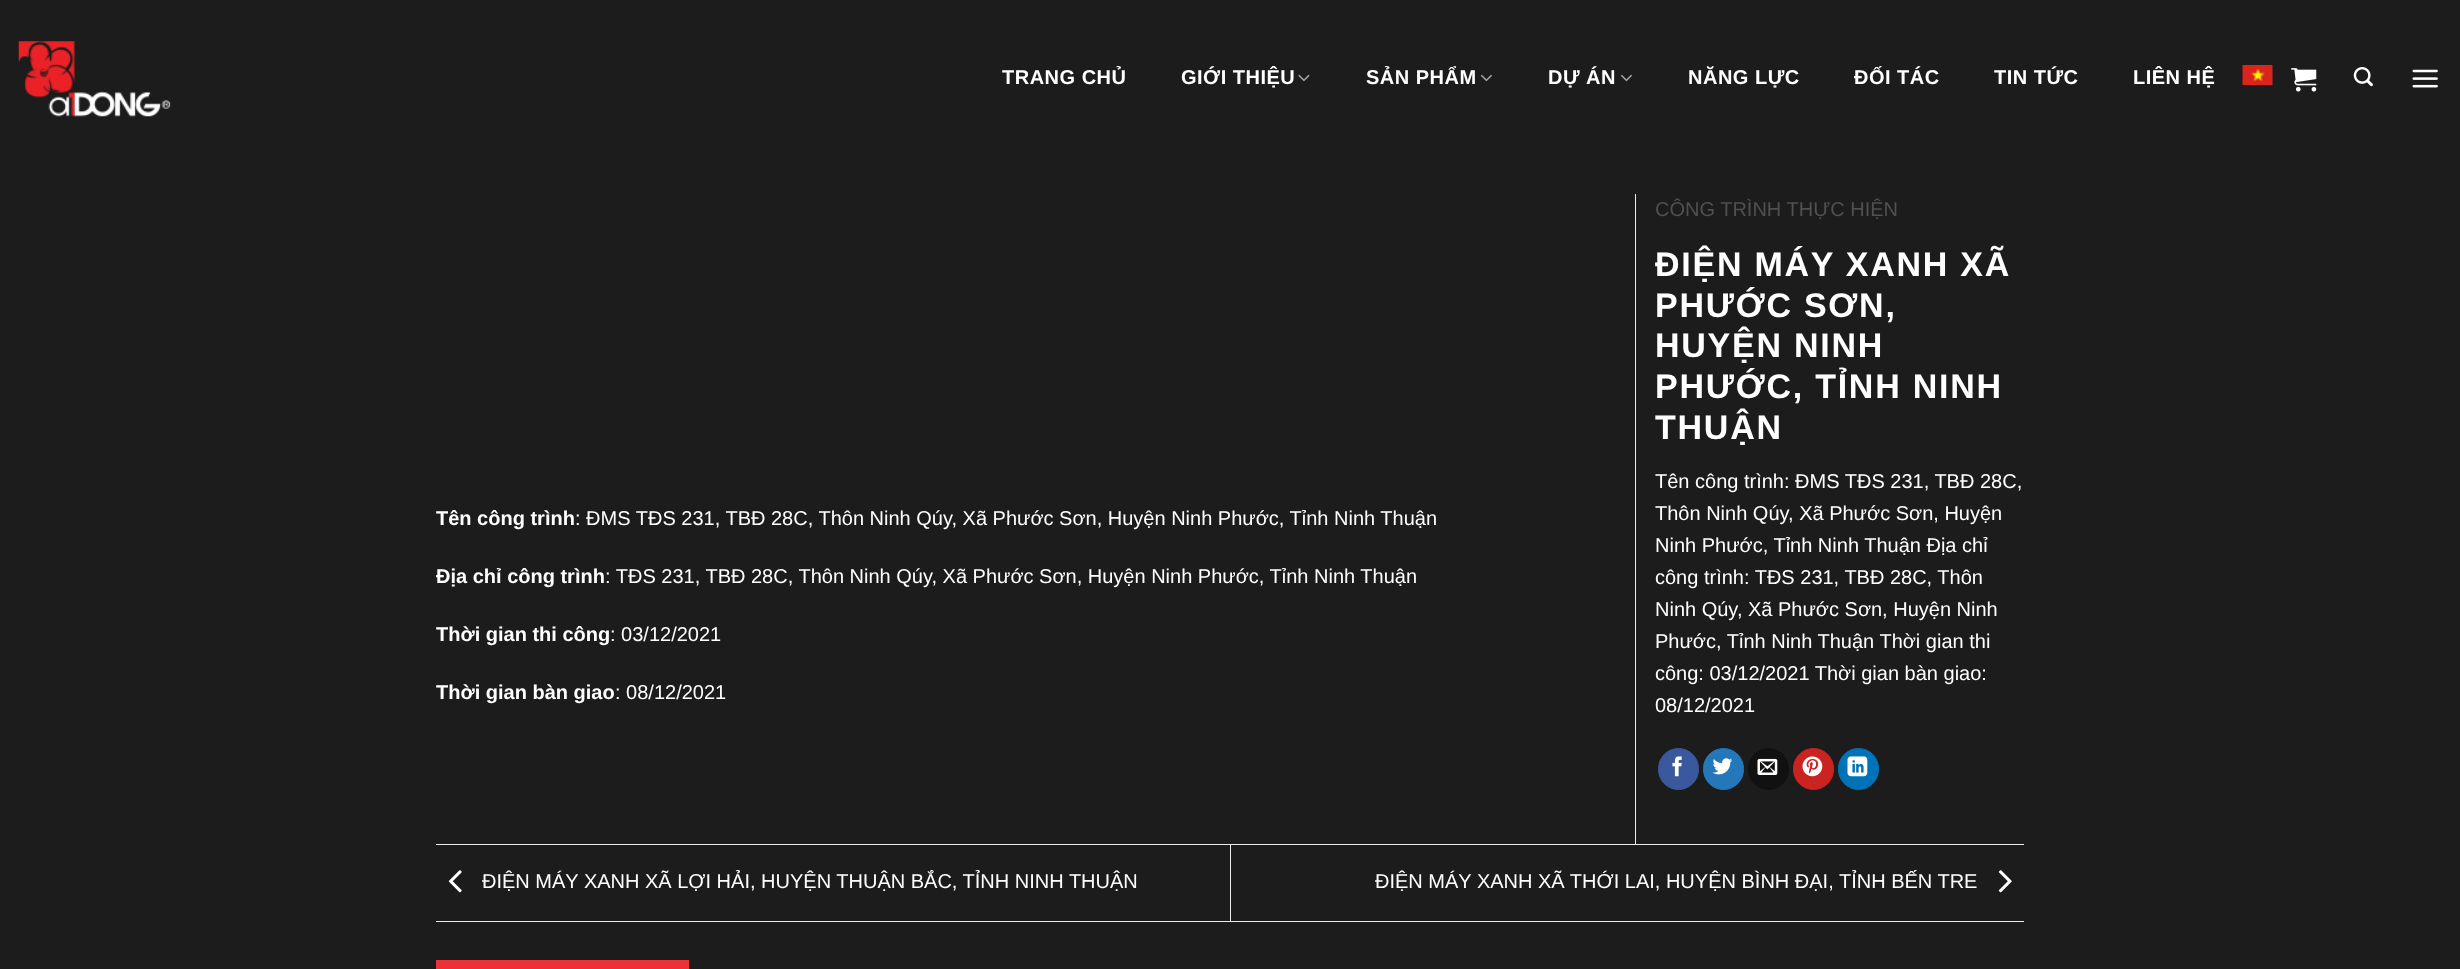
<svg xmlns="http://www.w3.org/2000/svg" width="2460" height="969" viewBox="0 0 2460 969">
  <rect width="100%" height="100%" fill="#1c1c1c"/>
  <image x="18" y="41" width="153" height="76" href="img1.png"/>
  <text x="1002" y="84" font-family="Liberation Sans" font-size="20" font-weight="bold" letter-spacing="0.5" fill="#ffffff">TRANG CHỦ</text>
  <text x="1181" y="84" font-family="Liberation Sans" font-size="20" font-weight="bold" letter-spacing="0.5" fill="#ffffff">GIỚI THIỆU</text>
  <image x="1298" y="74" width="12" height="8" href="img2.png"/>
  <text x="1366" y="84" font-family="Liberation Sans" font-size="20" font-weight="bold" letter-spacing="0.5" fill="#ffffff">SẢN PHẨM</text>
  <image x="1480" y="74" width="12" height="8" href="img3.png"/>
  <text x="1548" y="84" font-family="Liberation Sans" font-size="20" font-weight="bold" letter-spacing="0.5" fill="#ffffff">DỰ ÁN</text>
  <image x="1620" y="74" width="12" height="8" href="img3.png"/>
  <text x="1688" y="84" font-family="Liberation Sans" font-size="20" font-weight="bold" letter-spacing="0.5" fill="#ffffff">NĂNG LỰC</text>
  <text x="1854" y="84" font-family="Liberation Sans" font-size="20" font-weight="bold" letter-spacing="0.5" fill="#ffffff">ĐỐI TÁC</text>
  <text x="1994" y="84" font-family="Liberation Sans" font-size="20" font-weight="bold" letter-spacing="0.5" fill="#ffffff">TIN TỨC</text>
  <text x="2133" y="84" font-family="Liberation Sans" font-size="20" font-weight="bold" letter-spacing="0.5" fill="#ffffff">LIÊN HỆ</text>
  <image x="2242" y="65" width="31" height="20" href="img4.png"/>
  <image x="2291" y="68" width="26" height="24" href="img5.png"/>
  <image x="2353" y="67" width="20" height="20" href="img6.png"/>
  <image x="2412" y="69" width="26" height="19" href="img7.png"/>
  <rect x="1635" y="194" width="1" height="650" fill="#ececec"/>
  <text x="436" y="525" font-family="Liberation Sans" font-size="20" font-weight="bold" fill="#ffffff">Tên công trình</text>
  <text x="575" y="525" font-family="Liberation Sans" font-size="20" fill="#ffffff">: ĐMS TĐS 231, TBĐ 28C, Thôn Ninh Qúy, Xã Phước Sơn, Huyện Ninh Phước, Tỉnh Ninh Thuận</text>
  <text x="436" y="583" font-family="Liberation Sans" font-size="20" font-weight="bold" fill="#ffffff">Địa chỉ công trình</text>
  <text x="605" y="583" font-family="Liberation Sans" font-size="20" fill="#ffffff">: TĐS 231, TBĐ 28C, Thôn Ninh Qúy, Xã Phước Sơn, Huyện Ninh Phước, Tỉnh Ninh Thuận</text>
  <text x="436" y="641" font-family="Liberation Sans" font-size="20" font-weight="bold" fill="#ffffff">Thời gian thi công</text>
  <text x="610" y="641" font-family="Liberation Sans" font-size="20" fill="#ffffff">: 03/12/2021</text>
  <text x="436" y="699" font-family="Liberation Sans" font-size="20" font-weight="bold" fill="#ffffff">Thời gian bàn giao</text>
  <text x="615" y="699" font-family="Liberation Sans" font-size="20" fill="#ffffff">: 08/12/2021</text>
  <text x="1655" y="216" font-family="Liberation Sans" font-size="20" fill="#505050">CÔNG TRÌNH THỰC HIỆN</text>
  <text x="1655" y="276" font-family="Liberation Sans" font-size="34" font-weight="bold" letter-spacing="1.75" fill="#ffffff">ĐIỆN MÁY XANH XÃ</text>
  <text x="1655" y="317" font-family="Liberation Sans" font-size="34" font-weight="bold" letter-spacing="1.75" fill="#ffffff">PHƯỚC SƠN,</text>
  <text x="1655" y="357" font-family="Liberation Sans" font-size="34" font-weight="bold" letter-spacing="1.75" fill="#ffffff">HUYỆN NINH</text>
  <text x="1655" y="398" font-family="Liberation Sans" font-size="34" font-weight="bold" letter-spacing="1.75" fill="#ffffff">PHƯỚC, TỈNH NINH</text>
  <text x="1655" y="439" font-family="Liberation Sans" font-size="34" font-weight="bold" letter-spacing="1.75" fill="#ffffff">THUẬN</text>
  <text x="1655" y="488" font-family="Liberation Sans" font-size="20" fill="#ffffff">Tên công trình: ĐMS TĐS 231, TBĐ 28C,</text>
  <text x="1655" y="520" font-family="Liberation Sans" font-size="20" fill="#ffffff">Thôn Ninh Qúy, Xã Phước Sơn, Huyện</text>
  <text x="1655" y="552" font-family="Liberation Sans" font-size="20" fill="#ffffff">Ninh Phước, Tỉnh Ninh Thuận Địa chỉ</text>
  <text x="1655" y="584" font-family="Liberation Sans" font-size="20" fill="#ffffff">công trình: TĐS 231, TBĐ 28C, Thôn</text>
  <text x="1655" y="616" font-family="Liberation Sans" font-size="20" fill="#ffffff">Ninh Qúy, Xã Phước Sơn, Huyện Ninh</text>
  <text x="1655" y="648" font-family="Liberation Sans" font-size="20" fill="#ffffff">Phước, Tỉnh Ninh Thuận Thời gian thi</text>
  <text x="1655" y="680" font-family="Liberation Sans" font-size="20" fill="#ffffff">công: 03/12/2021 Thời gian bàn giao:</text>
  <text x="1655" y="712" font-family="Liberation Sans" font-size="20" fill="#ffffff">08/12/2021</text>
  <rect x="1658.5" y="748.5" width="40" height="41" rx="20" fill="#3a589d" stroke="#3a589d"/>
  <image x="1672" y="756" width="10" height="21" href="img8.png"/>
  <rect x="1703.5" y="748.5" width="40" height="41" rx="20" fill="#2478ba" stroke="#2478ba"/>
  <image x="1712" y="758" width="21" height="17" href="img9.png"/>
  <rect x="1748.5" y="748.5" width="40" height="41" rx="20" fill="#111111" stroke="#111111"/>
  <image x="1757" y="758" width="21" height="17" href="img10.png"/>
  <rect x="1793.5" y="748.5" width="40" height="41" rx="20" fill="#cb2320" stroke="#cb2320"/>
  <image x="1802" y="756" width="21" height="21" href="img11.png"/>
  <rect x="1838.5" y="748.5" width="40" height="41" rx="20" fill="#0072b7" stroke="#0072b7"/>
  <image x="1847" y="756" width="21" height="21" href="img12.png"/>
  <rect x="436" y="844" width="1588" height="1" fill="#ececec"/>
  <rect x="436" y="921" width="1588" height="1" fill="#ececec"/>
  <image x="448" y="870" width="14" height="23" href="img13.png"/>
  <text x="482" y="888" font-family="Liberation Sans" font-size="20" fill="#ffffff">ĐIỆN MÁY XANH XÃ LỢI HẢI, HUYỆN THUẬN BẮC, TỈNH NINH THUẬN</text>
  <rect x="1230" y="845" width="1" height="76" fill="#ececec"/>
  <text x="1375" y="888" font-family="Liberation Sans" font-size="20" fill="#ffffff">ĐIỆN MÁY XANH XÃ THỚI LAI, HUYỆN BÌNH ĐẠI, TỈNH BẾN TRE</text>
  <image x="1998" y="870" width="14" height="23" href="img14.png"/>
  <rect x="436" y="960" width="253" height="9" fill="#ed3137"/>
</svg>
